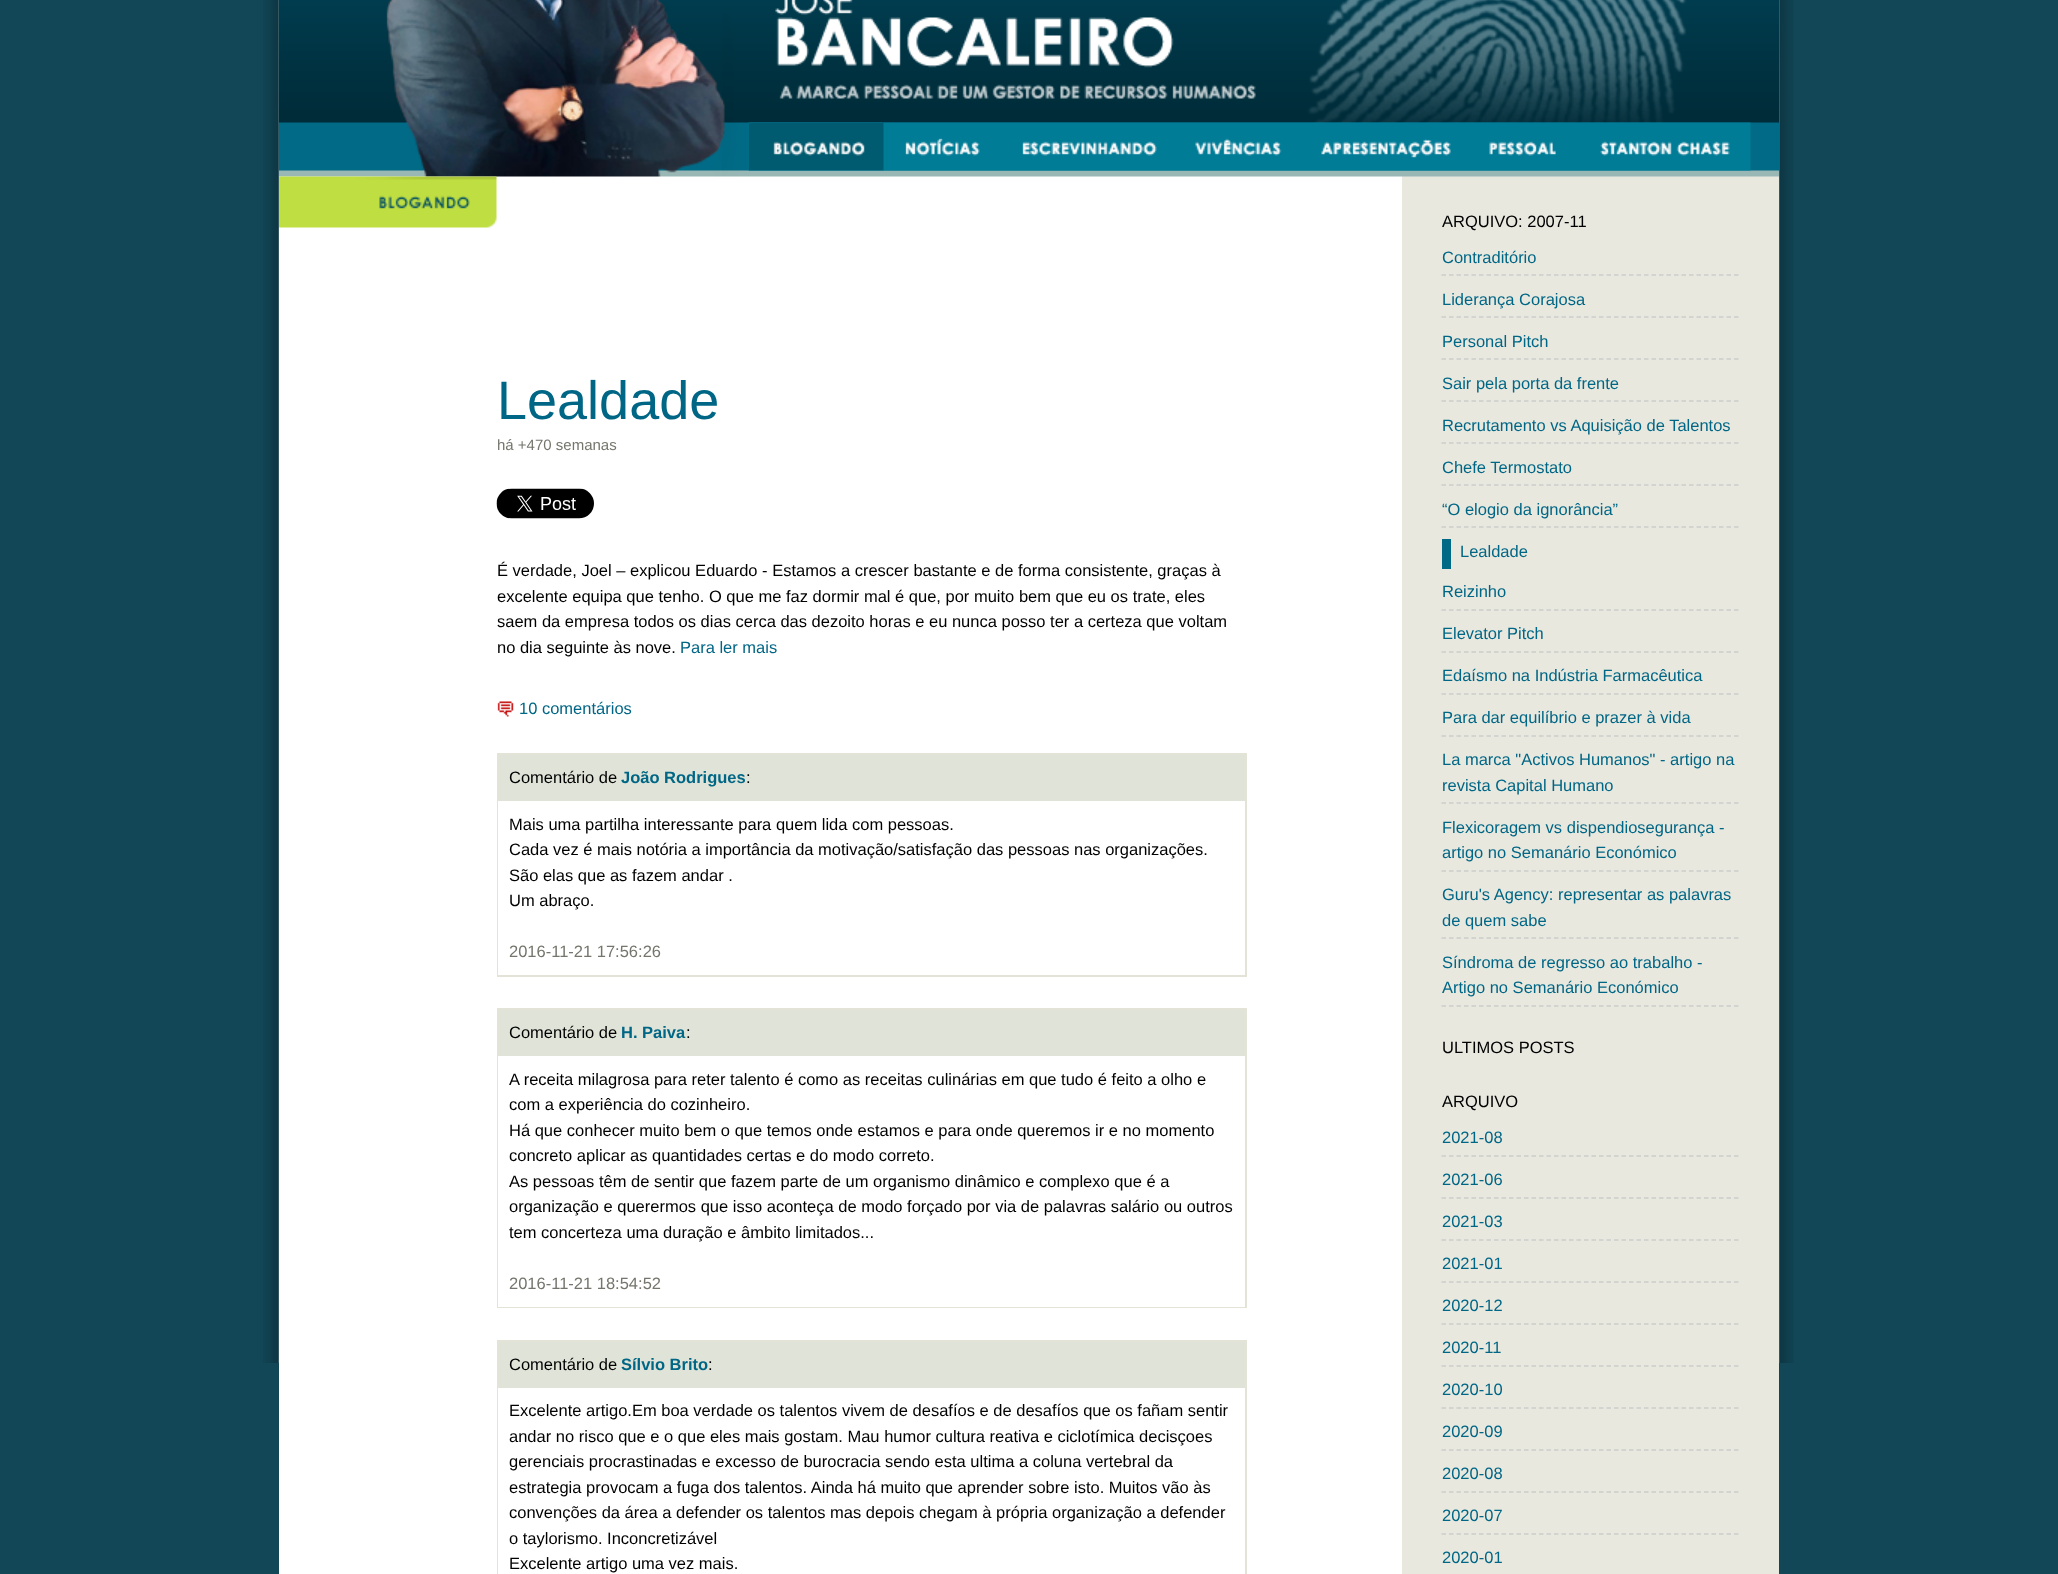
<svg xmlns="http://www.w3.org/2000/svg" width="2058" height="1574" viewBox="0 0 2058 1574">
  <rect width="100%" height="100%" fill="#124758"/>
  <image x="263" y="0" width="1531" height="1363" href="img1.png"/>
  <rect x="279" y="176" width="1123" height="1398" fill="#ffffff"/>
  <rect x="1402" y="176" width="377" height="1398" fill="#e8e8df"/>
  <image x="279" y="0" width="1500" height="177" href="img2.png"/>
  <image x="748" y="122" width="1003" height="49" href="img3.png"/>
  <image x="748" y="123" width="136" height="48" href="img4.png"/>
  <image x="279" y="176" width="218" height="52" href="img5.png"/>
  <text x="497" y="419" font-family="Liberation Sans" font-size="54" fill="#006685">Lealdade</text>
  <text x="497" y="450" font-family="Liberation Sans" font-size="15" fill="#75756d">há +470 semanas</text>
  <image x="496" y="488" width="98" height="31" href="img6.png"/>
  <text x="497" y="576" font-family="Liberation Sans" font-size="16.5" fill="#000000">É verdade, Joel – explicou Eduardo - Estamos a crescer bastante e de forma consistente, graças à</text>
  <text x="497" y="602" font-family="Liberation Sans" font-size="16.5" fill="#000000">excelente equipa que tenho. O que me faz dormir mal é que, por muito bem que eu os trate, eles</text>
  <text x="497" y="627" font-family="Liberation Sans" font-size="16.5" fill="#000000">saem da empresa todos os dias cerca das dezoito horas e eu nunca posso ter a certeza que voltam</text>
  <text x="497" y="653" font-family="Liberation Sans" font-size="16.5" fill="#000000">no dia seguinte às nove.</text>
  <text x="680" y="653" font-family="Liberation Sans" font-size="16.5" fill="#006685">Para ler mais</text>
  <image x="497" y="701" width="17" height="16" href="img7.png"/>
  <text x="519" y="714" font-family="Liberation Sans" font-size="16.5" fill="#006685">10 comentários</text>
  <rect x="499" y="755" width="746" height="46" fill="#e0e4d8"/>
  <rect x="498" y="754" width="748" height="222" fill="none" stroke="#e3e3d8" stroke-width="2"/>
  <text x="509" y="783" font-family="Liberation Sans" font-size="16.5" fill="#000000">Comentário de</text>
  <text x="621" y="783" font-family="Liberation Sans" font-size="16.5" font-weight="bold" fill="#006685">João Rodrigues</text>
  <text x="746" y="783" font-family="Liberation Sans" font-size="16.5" fill="#000000">:</text>
  <rect x="498" y="801" width="1" height="174" fill="#ffffff"/>
  <text x="509" y="830" font-family="Liberation Sans" font-size="16.5" fill="#000000">Mais uma partilha interessante para quem lida com pessoas.</text>
  <text x="509" y="855" font-family="Liberation Sans" font-size="16.5" fill="#000000">Cada vez é mais notória a importância da motivação/satisfação das pessoas nas organizações.</text>
  <text x="509" y="881" font-family="Liberation Sans" font-size="16.5" fill="#000000">São elas que as fazem andar .</text>
  <text x="509" y="906" font-family="Liberation Sans" font-size="16.5" fill="#000000">Um abraço.</text>
  <text x="509" y="957" font-family="Liberation Sans" font-size="16.5" fill="#75756d">2016-11-21 17:56:26</text>
  <rect x="499" y="1010" width="746" height="46" fill="#e0e4d8"/>
  <rect x="498" y="1009" width="748" height="298" fill="none" stroke="#e3e3d8" stroke-width="2"/>
  <text x="509" y="1038" font-family="Liberation Sans" font-size="16.5" fill="#000000">Comentário de</text>
  <text x="621" y="1038" font-family="Liberation Sans" font-size="16.5" font-weight="bold" fill="#006685">H. Paiva</text>
  <text x="686" y="1038" font-family="Liberation Sans" font-size="16.5" fill="#000000">:</text>
  <rect x="498" y="1056" width="747" height="251" fill="#ffffff"/>
  <text x="509" y="1085" font-family="Liberation Sans" font-size="16.5" fill="#000000">A receita milagrosa para reter talento é como as receitas culinárias em que tudo é feito a olho e</text>
  <text x="509" y="1110" font-family="Liberation Sans" font-size="16.5" fill="#000000">com a experiência do cozinheiro.</text>
  <text x="509" y="1136" font-family="Liberation Sans" font-size="16.5" fill="#000000">Há que conhecer muito bem o que temos onde estamos e para onde queremos ir e no momento</text>
  <text x="509" y="1161" font-family="Liberation Sans" font-size="16.5" fill="#000000">concreto aplicar as quantidades certas e do modo correto.</text>
  <text x="509" y="1187" font-family="Liberation Sans" font-size="16.5" fill="#000000">As pessoas têm de sentir que fazem parte de um organismo dinâmico e complexo que é a</text>
  <text x="509" y="1212" font-family="Liberation Sans" font-size="16.5" fill="#000000">organização e querermos que isso aconteça de modo forçado por via de palavras salário ou outros</text>
  <text x="509" y="1238" font-family="Liberation Sans" font-size="16.5" fill="#000000">tem concerteza uma duração e âmbito limitados...</text>
  <text x="509" y="1289" font-family="Liberation Sans" font-size="16.5" fill="#75756d">2016-11-21 18:54:52</text>
  <rect x="499" y="1342" width="746" height="46" fill="#e0e4d8"/>
  <rect x="498" y="1341" width="748" height="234" fill="none" stroke="#e3e3d8" stroke-width="2"/>
  <text x="509" y="1370" font-family="Liberation Sans" font-size="16.5" fill="#000000">Comentário de</text>
  <text x="621" y="1370" font-family="Liberation Sans" font-size="16.5" font-weight="bold" fill="#006685">Sílvio Brito</text>
  <text x="708" y="1370" font-family="Liberation Sans" font-size="16.5" fill="#000000">:</text>
  <rect x="498" y="1388" width="1" height="186" fill="#ffffff"/>
  <text x="509" y="1416" font-family="Liberation Sans" font-size="16.5" fill="#000000">Excelente artigo.Em boa verdade os talentos vivem de desafíos e de desafíos que os fañam sentir</text>
  <text x="509" y="1442" font-family="Liberation Sans" font-size="16.5" fill="#000000">andar no risco que e o que eles mais gostam. Mau humor cultura reativa e ciclotímica decisçoes</text>
  <text x="509" y="1467" font-family="Liberation Sans" font-size="16.5" fill="#000000">gerenciais procrastinadas e excesso de burocracia sendo esta ultima a coluna vertebral da</text>
  <text x="509" y="1493" font-family="Liberation Sans" font-size="16.5" fill="#000000">estrategia provocam a fuga dos talentos. Ainda há muito que aprender sobre isto. Muitos vão às</text>
  <text x="509" y="1518" font-family="Liberation Sans" font-size="16.5" fill="#000000">convenções da área a defender os talentos mas depois chegam à própria organização a defender</text>
  <text x="509" y="1544" font-family="Liberation Sans" font-size="16.5" fill="#000000">o taylorismo. Inconcretizável</text>
  <text x="509" y="1569" font-family="Liberation Sans" font-size="16.5" fill="#000000">Excelente artigo uma vez mais.</text>
  <text x="1442" y="227" font-family="Liberation Sans" font-size="16.5" fill="#000000">ARQUIVO: 2007-11</text>
  <path d="M1441.5 275H1738.5" fill="none" stroke="#cccccc" stroke-width="1.5" stroke-dasharray="4.5 3"/>
  <text x="1442" y="263" font-family="Liberation Sans" font-size="16.5" fill="#006685">Contraditório</text>
  <path d="M1441.5 317H1738.5" fill="none" stroke="#cccccc" stroke-width="1.5" stroke-dasharray="4.5 3"/>
  <text x="1442" y="305" font-family="Liberation Sans" font-size="16.5" fill="#006685">Liderança Corajosa</text>
  <path d="M1441.5 359H1738.5" fill="none" stroke="#cccccc" stroke-width="1.5" stroke-dasharray="4.5 3"/>
  <text x="1442" y="347" font-family="Liberation Sans" font-size="16.5" fill="#006685">Personal Pitch</text>
  <path d="M1441.5 401H1738.5" fill="none" stroke="#cccccc" stroke-width="1.5" stroke-dasharray="4.5 3"/>
  <text x="1442" y="389" font-family="Liberation Sans" font-size="16.5" fill="#006685">Sair pela porta da frente</text>
  <path d="M1441.5 443H1738.5" fill="none" stroke="#cccccc" stroke-width="1.5" stroke-dasharray="4.5 3"/>
  <text x="1442" y="431" font-family="Liberation Sans" font-size="16.5" fill="#006685">Recrutamento vs Aquisição de Talentos</text>
  <path d="M1441.5 485H1738.5" fill="none" stroke="#cccccc" stroke-width="1.5" stroke-dasharray="4.5 3"/>
  <text x="1442" y="473" font-family="Liberation Sans" font-size="16.5" fill="#006685">Chefe Termostato</text>
  <path d="M1441.5 527H1738.5" fill="none" stroke="#cccccc" stroke-width="1.5" stroke-dasharray="4.5 3"/>
  <text x="1442" y="515" font-family="Liberation Sans" font-size="16.5" fill="#006685">“O elogio da ignorância”</text>
  <rect x="1442" y="539" width="9" height="30" fill="#006985"/>
  <text x="1460" y="557" font-family="Liberation Sans" font-size="16.5" fill="#006685">Lealdade</text>
  <path d="M1441.5 610H1738.5" fill="none" stroke="#cccccc" stroke-width="1.5" stroke-dasharray="4.5 3"/>
  <text x="1442" y="597" font-family="Liberation Sans" font-size="16.5" fill="#006685">Reizinho</text>
  <path d="M1441.5 652H1738.5" fill="none" stroke="#cccccc" stroke-width="1.5" stroke-dasharray="4.5 3"/>
  <text x="1442" y="639" font-family="Liberation Sans" font-size="16.5" fill="#006685">Elevator Pitch</text>
  <path d="M1441.5 694H1738.5" fill="none" stroke="#cccccc" stroke-width="1.5" stroke-dasharray="4.5 3"/>
  <text x="1442" y="681" font-family="Liberation Sans" font-size="16.5" fill="#006685">Edaísmo na Indústria Farmacêutica</text>
  <path d="M1441.5 736H1738.5" fill="none" stroke="#cccccc" stroke-width="1.5" stroke-dasharray="4.5 3"/>
  <text x="1442" y="723" font-family="Liberation Sans" font-size="16.5" fill="#006685">Para dar equilíbrio e prazer à vida</text>
  <path d="M1441.5 803H1738.5" fill="none" stroke="#cccccc" stroke-width="1.5" stroke-dasharray="4.5 3"/>
  <text x="1442" y="765" font-family="Liberation Sans" font-size="16.5" fill="#006685">La marca "Activos Humanos" - artigo na</text>
  <text x="1442" y="791" font-family="Liberation Sans" font-size="16.5" fill="#006685">revista Capital Humano</text>
  <path d="M1441.5 871H1738.5" fill="none" stroke="#cccccc" stroke-width="1.5" stroke-dasharray="4.5 3"/>
  <text x="1442" y="833" font-family="Liberation Sans" font-size="16.5" fill="#006685">Flexicoragem vs dispendiosegurança -</text>
  <text x="1442" y="858" font-family="Liberation Sans" font-size="16.5" fill="#006685">artigo no Semanário Económico</text>
  <path d="M1441.5 938H1738.5" fill="none" stroke="#cccccc" stroke-width="1.5" stroke-dasharray="4.5 3"/>
  <text x="1442" y="900" font-family="Liberation Sans" font-size="16.5" fill="#006685">Guru's Agency: representar as palavras</text>
  <text x="1442" y="926" font-family="Liberation Sans" font-size="16.5" fill="#006685">de quem sabe</text>
  <path d="M1441.5 1006H1738.5" fill="none" stroke="#cccccc" stroke-width="1.5" stroke-dasharray="4.5 3"/>
  <text x="1442" y="968" font-family="Liberation Sans" font-size="16.5" fill="#006685">Síndroma de regresso ao trabalho -</text>
  <text x="1442" y="993" font-family="Liberation Sans" font-size="16.5" fill="#006685">Artigo no Semanário Económico</text>
  <text x="1442" y="1053" font-family="Liberation Sans" font-size="16.5" fill="#000000">ULTIMOS POSTS</text>
  <text x="1442" y="1107" font-family="Liberation Sans" font-size="16.5" fill="#000000">ARQUIVO</text>
  <path d="M1441.5 1156H1738.5" fill="none" stroke="#cccccc" stroke-width="1.5" stroke-dasharray="4.5 3"/>
  <text x="1442" y="1143" font-family="Liberation Sans" font-size="16.5" fill="#006685">2021-08</text>
  <path d="M1441.5 1198H1738.5" fill="none" stroke="#cccccc" stroke-width="1.5" stroke-dasharray="4.5 3"/>
  <text x="1442" y="1185" font-family="Liberation Sans" font-size="16.5" fill="#006685">2021-06</text>
  <path d="M1441.5 1240H1738.5" fill="none" stroke="#cccccc" stroke-width="1.5" stroke-dasharray="4.5 3"/>
  <text x="1442" y="1227" font-family="Liberation Sans" font-size="16.5" fill="#006685">2021-03</text>
  <path d="M1441.5 1282H1738.5" fill="none" stroke="#cccccc" stroke-width="1.5" stroke-dasharray="4.5 3"/>
  <text x="1442" y="1269" font-family="Liberation Sans" font-size="16.5" fill="#006685">2021-01</text>
  <path d="M1441.5 1324H1738.5" fill="none" stroke="#cccccc" stroke-width="1.5" stroke-dasharray="4.5 3"/>
  <text x="1442" y="1311" font-family="Liberation Sans" font-size="16.5" fill="#006685">2020-12</text>
  <path d="M1441.5 1366H1738.5" fill="none" stroke="#cccccc" stroke-width="1.5" stroke-dasharray="4.5 3"/>
  <text x="1442" y="1353" font-family="Liberation Sans" font-size="16.5" fill="#006685">2020-11</text>
  <path d="M1441.5 1408H1738.5" fill="none" stroke="#cccccc" stroke-width="1.5" stroke-dasharray="4.5 3"/>
  <text x="1442" y="1395" font-family="Liberation Sans" font-size="16.5" fill="#006685">2020-10</text>
  <path d="M1441.5 1450H1738.5" fill="none" stroke="#cccccc" stroke-width="1.5" stroke-dasharray="4.5 3"/>
  <text x="1442" y="1437" font-family="Liberation Sans" font-size="16.5" fill="#006685">2020-09</text>
  <path d="M1441.5 1492H1738.5" fill="none" stroke="#cccccc" stroke-width="1.5" stroke-dasharray="4.5 3"/>
  <text x="1442" y="1479" font-family="Liberation Sans" font-size="16.5" fill="#006685">2020-08</text>
  <path d="M1441.5 1534H1738.5" fill="none" stroke="#cccccc" stroke-width="1.5" stroke-dasharray="4.5 3"/>
  <text x="1442" y="1521" font-family="Liberation Sans" font-size="16.5" fill="#006685">2020-07</text>
  <text x="1442" y="1563" font-family="Liberation Sans" font-size="16.5" fill="#006685">2020-01</text>
</svg>
